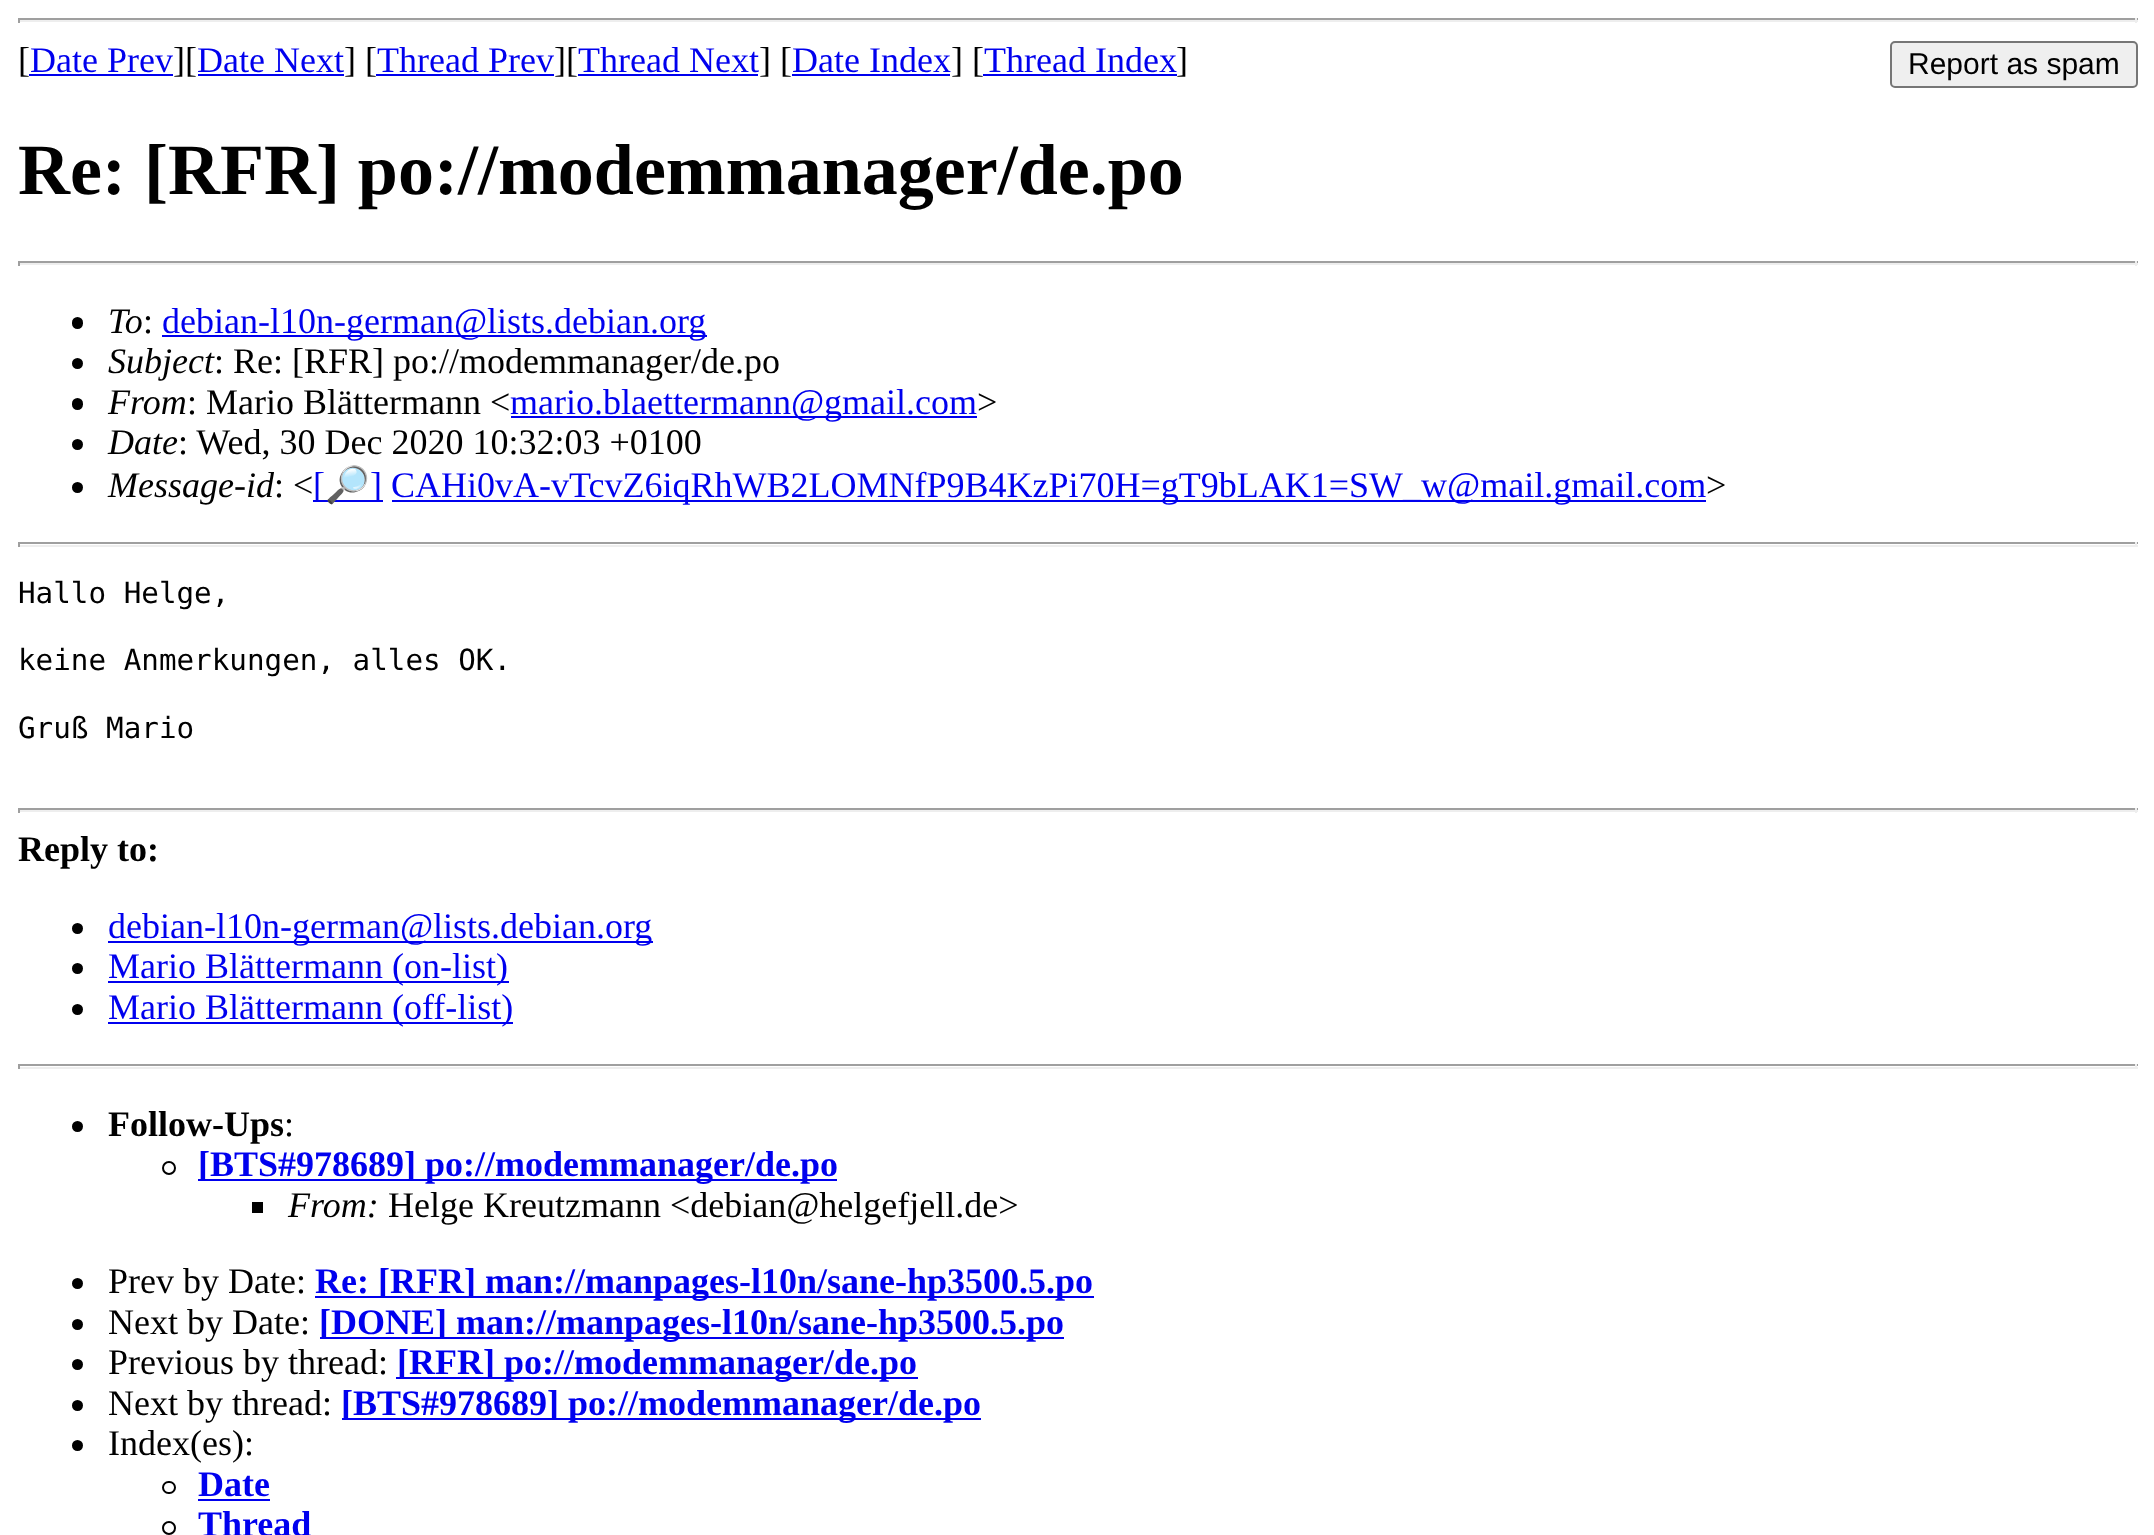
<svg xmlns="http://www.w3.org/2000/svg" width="2154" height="1535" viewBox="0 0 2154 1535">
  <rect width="100%" height="100%" fill="#ffffff"/>
  <rect x="18" y="18" width="2120" height="2" fill="#9f9f9f"/>
  <rect x="2135" y="18" width="2" height="5" fill="#eeeeee"/>
  <rect x="18" y="20" width="2120" height="2" fill="#eeeeee"/>
  <rect x="18" y="18" width="2" height="5" fill="#9f9f9f"/>
  <text x="18" y="72" font-family="Liberation Serif" font-size="36" fill="#000000">[</text>
  <text x="30" y="72" font-family="Liberation Serif" font-size="36" fill="#0000ee">Date Prev</text>
  <rect x="29" y="74" width="144" height="2" fill="#0000ee"/>
  <text x="173" y="72" font-family="Liberation Serif" font-size="36" fill="#000000">][</text>
  <text x="197" y="72" font-family="Liberation Serif" font-size="36" fill="#0000ee">Date Next</text>
  <rect x="198" y="74" width="146" height="2" fill="#0000ee"/>
  <text x="344" y="72" font-family="Liberation Serif" font-size="36" fill="#000000">] [</text>
  <text x="377" y="72" font-family="Liberation Serif" font-size="36" fill="#0000ee">Thread Prev</text>
  <rect x="376" y="74" width="178" height="2" fill="#0000ee"/>
  <text x="554" y="72" font-family="Liberation Serif" font-size="36" fill="#000000">][</text>
  <text x="578" y="72" font-family="Liberation Serif" font-size="36" fill="#0000ee">Thread Next</text>
  <rect x="578" y="74" width="180" height="2" fill="#0000ee"/>
  <text x="759" y="72" font-family="Liberation Serif" font-size="36" fill="#000000">] [</text>
  <text x="792" y="72" font-family="Liberation Serif" font-size="36" fill="#0000ee">Date Index</text>
  <rect x="792" y="74" width="158" height="2" fill="#0000ee"/>
  <text x="951" y="72" font-family="Liberation Serif" font-size="36" fill="#000000">] [</text>
  <text x="984" y="72" font-family="Liberation Serif" font-size="36" fill="#0000ee">Thread Index</text>
  <rect x="983" y="74" width="194" height="2" fill="#0000ee"/>
  <text x="1176" y="72" font-family="Liberation Serif" font-size="36" fill="#000000">]</text>
  <rect x="1891" y="42" width="246" height="45" rx="4" fill="#efefef" stroke="#767676" stroke-width="2"/>
  <text x="1908" y="74" font-family="Liberation Sans" font-size="30" fill="#000000">Report as spam</text>
  <text x="18" y="194" font-family="Liberation Serif" font-size="72" font-weight="bold" fill="#000000">Re: [RFR] po://modemmanager/de.po</text>
  <rect x="18" y="261" width="2120" height="2" fill="#9f9f9f"/>
  <rect x="2135" y="261" width="2" height="5" fill="#eeeeee"/>
  <rect x="18" y="263" width="2120" height="2" fill="#eeeeee"/>
  <rect x="18" y="261" width="2" height="5" fill="#9f9f9f"/>
  <rect x="72" y="317" width="11" height="12" rx="5.5" fill="#000000"/>
  <text x="108" y="333" font-family="Liberation Serif" font-size="36" font-style="italic" fill="#000000">To</text>
  <text x="143" y="333" font-family="Liberation Serif" font-size="36" fill="#000000">:</text>
  <rect x="162" y="335" width="545" height="2" fill="#0000ee"/>
  <text x="162" y="333" font-family="Liberation Serif" font-size="36" fill="#0000ee">debian-l10n-german@lists.debian.org</text>
  <circle cx="77.5" cy="363.5" r="5.5" fill="#000000"/>
  <text x="108" y="373" font-family="Liberation Serif" font-size="36" font-style="italic" fill="#000000">Subject</text>
  <text x="214" y="373" font-family="Liberation Serif" font-size="36" fill="#000000">: Re: [RFR] po://modemmanager/de.po</text>
  <rect x="72" y="398" width="11" height="12" rx="5.5" fill="#000000"/>
  <text x="108" y="414" font-family="Liberation Serif" font-size="36" font-style="italic" fill="#000000">From</text>
  <text x="187" y="414" font-family="Liberation Serif" font-size="36" fill="#000000">: Mario Blättermann &lt;</text>
  <rect x="511" y="416" width="466" height="2" fill="#0000ee"/>
  <text x="510" y="414" font-family="Liberation Serif" font-size="36" fill="#0000ee">mario.blaettermann@gmail.com</text>
  <text x="977" y="414" font-family="Liberation Serif" font-size="36" fill="#000000">&gt;</text>
  <circle cx="77.5" cy="444.5" r="5.5" fill="#000000"/>
  <text x="108" y="454" font-family="Liberation Serif" font-size="36" font-style="italic" fill="#000000">Date</text>
  <text x="178" y="454" font-family="Liberation Serif" font-size="36" fill="#000000">: Wed, 30 Dec 2020 10:32:03 +0100</text>
  <circle cx="77.5" cy="487.5" r="5.5" fill="#000000"/>
  <text x="108" y="497" font-family="Liberation Serif" font-size="36" font-style="italic" fill="#000000">Message-id</text>
  <text x="274" y="497" font-family="Liberation Serif" font-size="36" fill="#000000">: &lt;</text>
  <rect x="313" y="500" width="70" height="2" fill="#0000ee"/>
  <text x="313" y="497" font-family="Liberation Serif" font-size="36" fill="#0000ee">[</text>
  <text x="325" y="497" font-family="Noto Color Emoji" font-size="36" fill="#0000ee">🔎</text>
  <text x="370" y="497" font-family="Liberation Serif" font-size="36" fill="#0000ee">]</text>
  <rect x="392" y="500" width="1314" height="2" fill="#0000ee"/>
  <text x="391" y="497" font-family="Liberation Serif" font-size="36" fill="#0000ee">CAHi0vA-vTcvZ6iqRhWB2LOMNfP9B4KzPi70H=gT9bLAK1=SW_w@mail.gmail.com</text>
  <text x="1706" y="497" font-family="Liberation Serif" font-size="36" fill="#000000">&gt;</text>
  <rect x="18" y="542" width="2120" height="2" fill="#9f9f9f"/>
  <rect x="2135" y="542" width="2" height="5" fill="#eeeeee"/>
  <rect x="18" y="545" width="2120" height="2" fill="#eeeeee"/>
  <rect x="18" y="542" width="2" height="5" fill="#9f9f9f"/>
  <text x="18" y="603" font-family="DejaVu Sans Mono" font-size="29.25" fill="#000000">Hallo Helge,</text>
  <text x="18" y="670" font-family="DejaVu Sans Mono" font-size="29.25" fill="#000000">keine Anmerkungen, alles OK.</text>
  <text x="18" y="738" font-family="DejaVu Sans Mono" font-size="29.25" fill="#000000">Gruß Mario</text>
  <rect x="18" y="808" width="2120" height="2" fill="#9f9f9f"/>
  <rect x="2135" y="808" width="2" height="5" fill="#eeeeee"/>
  <rect x="18" y="810" width="2120" height="2" fill="#eeeeee"/>
  <rect x="18" y="808" width="2" height="5" fill="#9f9f9f"/>
  <text x="18" y="861" font-family="Liberation Serif" font-size="36" font-weight="bold" fill="#000000">Reply to:</text>
  <circle cx="77.5" cy="928.5" r="5.5" fill="#000000"/>
  <rect x="108" y="941" width="545" height="2" fill="#0000ee"/>
  <text x="108" y="938" font-family="Liberation Serif" font-size="36" fill="#0000ee">debian-l10n-german@lists.debian.org</text>
  <circle cx="77.5" cy="968.5" r="5.5" fill="#000000"/>
  <rect x="108" y="981" width="401" height="2" fill="#0000ee"/>
  <text x="108" y="978" font-family="Liberation Serif" font-size="36" fill="#0000ee">Mario Blättermann (on-list)</text>
  <circle cx="77.5" cy="1009.5" r="5.5" fill="#000000"/>
  <rect x="108" y="1022" width="405" height="2" fill="#0000ee"/>
  <text x="108" y="1019" font-family="Liberation Serif" font-size="36" fill="#0000ee">Mario Blättermann (off-list)</text>
  <rect x="18" y="1064" width="2120" height="2" fill="#9f9f9f"/>
  <rect x="2135" y="1064" width="2" height="5" fill="#eeeeee"/>
  <rect x="18" y="1067" width="2120" height="2" fill="#eeeeee"/>
  <rect x="18" y="1064" width="2" height="5" fill="#9f9f9f"/>
  <circle cx="77.5" cy="1126.5" r="5.5" fill="#000000"/>
  <text x="108" y="1136" font-family="Liberation Serif" font-size="36" font-weight="bold" fill="#000000">Follow-Ups</text>
  <text x="284" y="1136" font-family="Liberation Serif" font-size="36" fill="#000000">:</text>
  <circle cx="169" cy="1168" r="6" fill="none" stroke="#000000" stroke-width="2"/>
  <rect x="198" y="1179" width="639" height="2" fill="#0000ee"/>
  <text x="198" y="1176" font-family="Liberation Serif" font-size="36" font-weight="bold" fill="#0000ee">[BTS#978689] po://modemmanager/de.po</text>
  <rect x="252" y="1202" width="11" height="11" fill="#000000"/>
  <text x="288" y="1217" font-family="Liberation Serif" font-size="36" font-style="italic" fill="#000000">From:</text>
  <text x="388" y="1217" font-family="Liberation Serif" font-size="36" fill="#000000">Helge Kreutzmann &lt;debian@helgefjell.de&gt;</text>
  <circle cx="77.5" cy="1283.5" r="5.5" fill="#000000"/>
  <text x="108" y="1293" font-family="Liberation Serif" font-size="36" fill="#000000">Prev by Date:</text>
  <rect x="315" y="1296" width="779" height="2" fill="#0000ee"/>
  <text x="315" y="1293" font-family="Liberation Serif" font-size="36" font-weight="bold" fill="#0000ee">Re: [RFR] man://manpages-l10n/sane-hp3500.5.po</text>
  <circle cx="77.5" cy="1324.5" r="5.5" fill="#000000"/>
  <text x="108" y="1334" font-family="Liberation Serif" font-size="36" fill="#000000">Next by Date:</text>
  <rect x="320" y="1337" width="744" height="2" fill="#0000ee"/>
  <text x="319" y="1334" font-family="Liberation Serif" font-size="36" font-weight="bold" fill="#0000ee">[DONE] man://manpages-l10n/sane-hp3500.5.po</text>
  <circle cx="77.5" cy="1364.5" r="5.5" fill="#000000"/>
  <text x="108" y="1374" font-family="Liberation Serif" font-size="36" fill="#000000">Previous by thread:</text>
  <rect x="396" y="1377" width="522" height="2" fill="#0000ee"/>
  <text x="397" y="1374" font-family="Liberation Serif" font-size="36" font-weight="bold" fill="#0000ee">[RFR] po://modemmanager/de.po</text>
  <circle cx="77.5" cy="1405.5" r="5.5" fill="#000000"/>
  <text x="108" y="1415" font-family="Liberation Serif" font-size="36" fill="#000000">Next by thread:</text>
  <rect x="342" y="1418" width="639" height="2" fill="#0000ee"/>
  <text x="341" y="1415" font-family="Liberation Serif" font-size="36" font-weight="bold" fill="#0000ee">[BTS#978689] po://modemmanager/de.po</text>
  <circle cx="77.5" cy="1445.5" r="5.5" fill="#000000"/>
  <text x="108" y="1455" font-family="Liberation Serif" font-size="36" fill="#000000">Index(es):</text>
  <rect x="163" y="1482" width="12" height="11" rx="5.5" fill="none" stroke="#000000" stroke-width="2"/>
  <text x="198" y="1496" font-family="Liberation Serif" font-size="36" font-weight="bold" fill="#0000ee">Date</text>
  <rect x="198" y="1499" width="72" height="2" fill="#0000ee"/>
  <circle cx="169" cy="1528" r="6" fill="none" stroke="#000000" stroke-width="2"/>
  <text x="198" y="1536" font-family="Liberation Serif" font-size="36" font-weight="bold" fill="#0000ee">Thread</text>
</svg>
